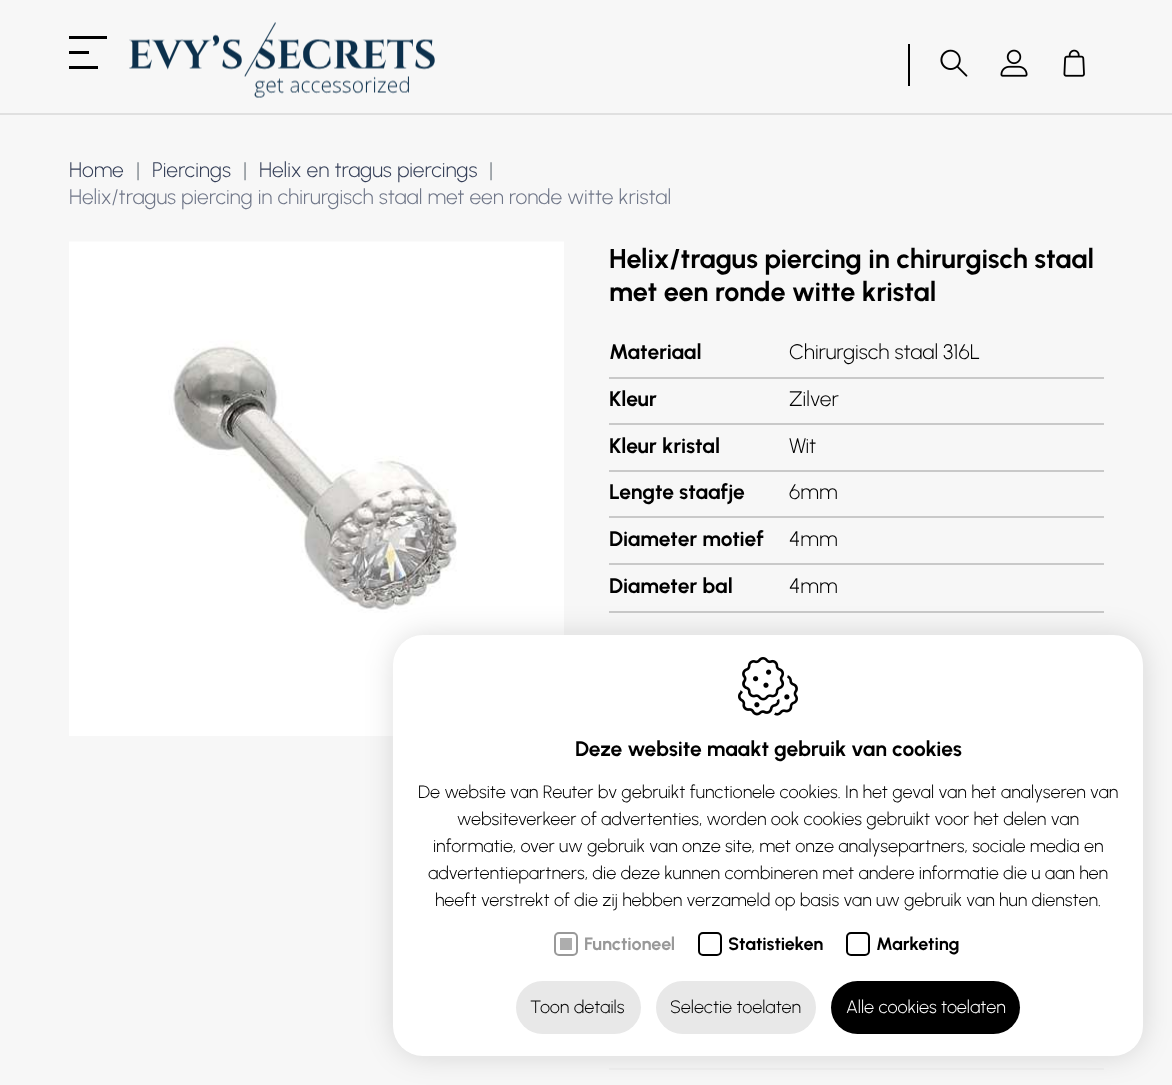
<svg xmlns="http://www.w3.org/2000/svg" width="1172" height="1085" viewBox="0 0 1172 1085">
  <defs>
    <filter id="blur1" x="-50%" y="-200%" width="200%" height="500%"><feGaussianBlur stdDeviation="15"/></filter>
  </defs>
  <rect width="100%" height="100%" fill="#f7f7f7"/>
  <rect x="0" y="113" width="1172" height="2" fill="#e0e0e0"/>
  <rect x="69" y="36" width="38" height="3" fill="#000000"/>
  <rect x="69" y="51" width="20" height="3" fill="#000000"/>
  <rect x="69" y="66" width="29" height="3" fill="#000000"/>
  <image x="129" y="22" width="306" height="76" href="img1.png"/>
  <rect x="908" y="44" width="2" height="42" fill="#000000"/>
  <image x="940" y="49" width="28" height="28" href="img2.png"/>
  <image x="1000" y="49" width="28" height="28" href="img3.png"/>
  <image x="1063" y="49" width="22" height="28" href="img4.png"/>
  <text x="69" y="177" font-family="Urbanist" font-size="21" font-weight="300" fill="#353f58">Home</text>
  <text x="136" y="177" font-family="Urbanist" font-size="21" font-weight="300" fill="#6c757d">|</text>
  <text x="152" y="177" font-family="Urbanist" font-size="21" font-weight="300" fill="#353f58">Piercings</text>
  <text x="243" y="177" font-family="Urbanist" font-size="21" font-weight="300" fill="#6c757d">|</text>
  <text x="259" y="177" font-family="Urbanist" font-size="21" font-weight="300" fill="#353f58">Helix en tragus piercings</text>
  <text x="489" y="177" font-family="Urbanist" font-size="21" font-weight="300" fill="#6c757d">|</text>
  <text x="69" y="204" font-family="Urbanist" font-size="21" font-weight="300" fill="#6f7688">Helix/tragus piercing in chirurgisch staal met een ronde witte kristal</text>
  <image x="69" y="241" width="495" height="495" href="img5.png"/>
  <text x="609" y="268" font-family="Urbanist" font-size="27" font-weight="bold" fill="#000000">Helix/tragus piercing in chirurgisch staal</text>
  <text x="609" y="301" font-family="Urbanist" font-size="27" font-weight="bold" fill="#000000">met een ronde witte kristal</text>
  <rect x="609" y="377" width="495" height="2" fill="#c9c9c9"/>
  <text x="609" y="359" font-family="Urbanist" font-size="21" font-weight="bold" fill="#000000">Materiaal</text>
  <text x="789" y="359" font-family="Urbanist" font-size="21" font-weight="300" fill="#000000">Chirurgisch staal 316L</text>
  <rect x="609" y="423" width="495" height="2" fill="#c9c9c9"/>
  <text x="609" y="406" font-family="Urbanist" font-size="21" font-weight="bold" fill="#000000">Kleur</text>
  <text x="789" y="406" font-family="Urbanist" font-size="21" font-weight="300" fill="#000000">Zilver</text>
  <rect x="609" y="470" width="495" height="2" fill="#c9c9c9"/>
  <text x="609" y="453" font-family="Urbanist" font-size="21" font-weight="bold" fill="#000000">Kleur kristal</text>
  <text x="789" y="453" font-family="Urbanist" font-size="21" font-weight="300" fill="#000000">Wit</text>
  <rect x="609" y="516" width="495" height="2" fill="#c9c9c9"/>
  <text x="609" y="499" font-family="Urbanist" font-size="21" font-weight="bold" fill="#000000">Lengte staafje</text>
  <text x="789" y="499" font-family="Urbanist" font-size="21" font-weight="300" fill="#000000">6mm</text>
  <rect x="609" y="563" width="495" height="2" fill="#c9c9c9"/>
  <text x="609" y="546" font-family="Urbanist" font-size="21" font-weight="bold" fill="#000000">Diameter motief</text>
  <text x="789" y="546" font-family="Urbanist" font-size="21" font-weight="300" fill="#000000">4mm</text>
  <rect x="609" y="611" width="495" height="2" fill="#c9c9c9"/>
  <text x="609" y="593" font-family="Urbanist" font-size="21" font-weight="bold" fill="#000000">Diameter bal</text>
  <text x="789" y="593" font-family="Urbanist" font-size="21" font-weight="300" fill="#000000">4mm</text>
  <rect x="609" y="1068" width="495" height="2" fill="#f1f1f1"/>
  <rect x="395" y="636" width="747" height="419" rx="29" fill="#000000" fill-opacity="0.15" filter="url(#blur1)"/>
  <rect x="393" y="635" width="750" height="421" rx="30" fill="#ffffff"/>
  <image x="738" y="657" width="60" height="59" href="img6.png"/>
  <text x="575" y="756" font-family="Urbanist" font-size="21" font-weight="bold" fill="#000000">Deze website maakt gebruik van cookies</text>
  <text x="418" y="798" font-family="Urbanist" font-size="18" font-weight="300" fill="#000000">De website van Reuter bv gebruikt functionele cookies. In het geval van het analyseren van</text>
  <text x="457" y="825" font-family="Urbanist" font-size="18" font-weight="300" fill="#000000">websiteverkeer of advertenties, worden ook cookies gebruikt voor het delen van</text>
  <text x="433" y="852" font-family="Urbanist" font-size="18" font-weight="300" fill="#000000">informatie, over uw gebruik van onze site, met onze analysepartners, sociale media en</text>
  <text x="428" y="879" font-family="Urbanist" font-size="18" font-weight="300" fill="#000000">advertentiepartners, die deze kunnen combineren met andere informatie die u aan hen</text>
  <text x="435" y="906" font-family="Urbanist" font-size="18" font-weight="300" fill="#000000">heeft verstrekt of die zij hebben verzameld op basis van uw gebruik van hun diensten.</text>
  <rect x="555" y="933" width="22" height="22" rx="4" fill="none" stroke="#999999" stroke-width="2"/>
  <text x="584" y="950" font-family="Urbanist" font-size="18" font-weight="bold" fill="#999999">Functioneel</text>
  <rect x="560" y="938" width="12" height="12" fill="#adadad"/>
  <rect x="699" y="933" width="22" height="22" rx="4" fill="none" stroke="#000000" stroke-width="2"/>
  <text x="728" y="950" font-family="Urbanist" font-size="18" font-weight="bold" fill="#000000">Statistieken</text>
  <rect x="847" y="933" width="22" height="22" rx="4" fill="none" stroke="#000000" stroke-width="2"/>
  <text x="876" y="950" font-family="Urbanist" font-size="18" font-weight="bold" fill="#000000">Marketing</text>
  <rect x="516" y="981" width="125" height="53" rx="26.5" fill="#e8e8e8"/>
  <text x="530" y="1013" font-family="Urbanist" font-size="18" font-weight="300" fill="#000000">Toon details</text>
  <rect x="656" y="981" width="160" height="53" rx="26.5" fill="#e8e8e8"/>
  <text x="670" y="1013" font-family="Urbanist" font-size="18" font-weight="300" fill="#000000">Selectie toelaten</text>
  <rect x="831" y="981" width="189" height="53" rx="26.5" fill="#000000"/>
  <text x="846" y="1013" font-family="Urbanist" font-size="18" font-weight="300" fill="#ffffff">Alle cookies toelaten</text>
</svg>
